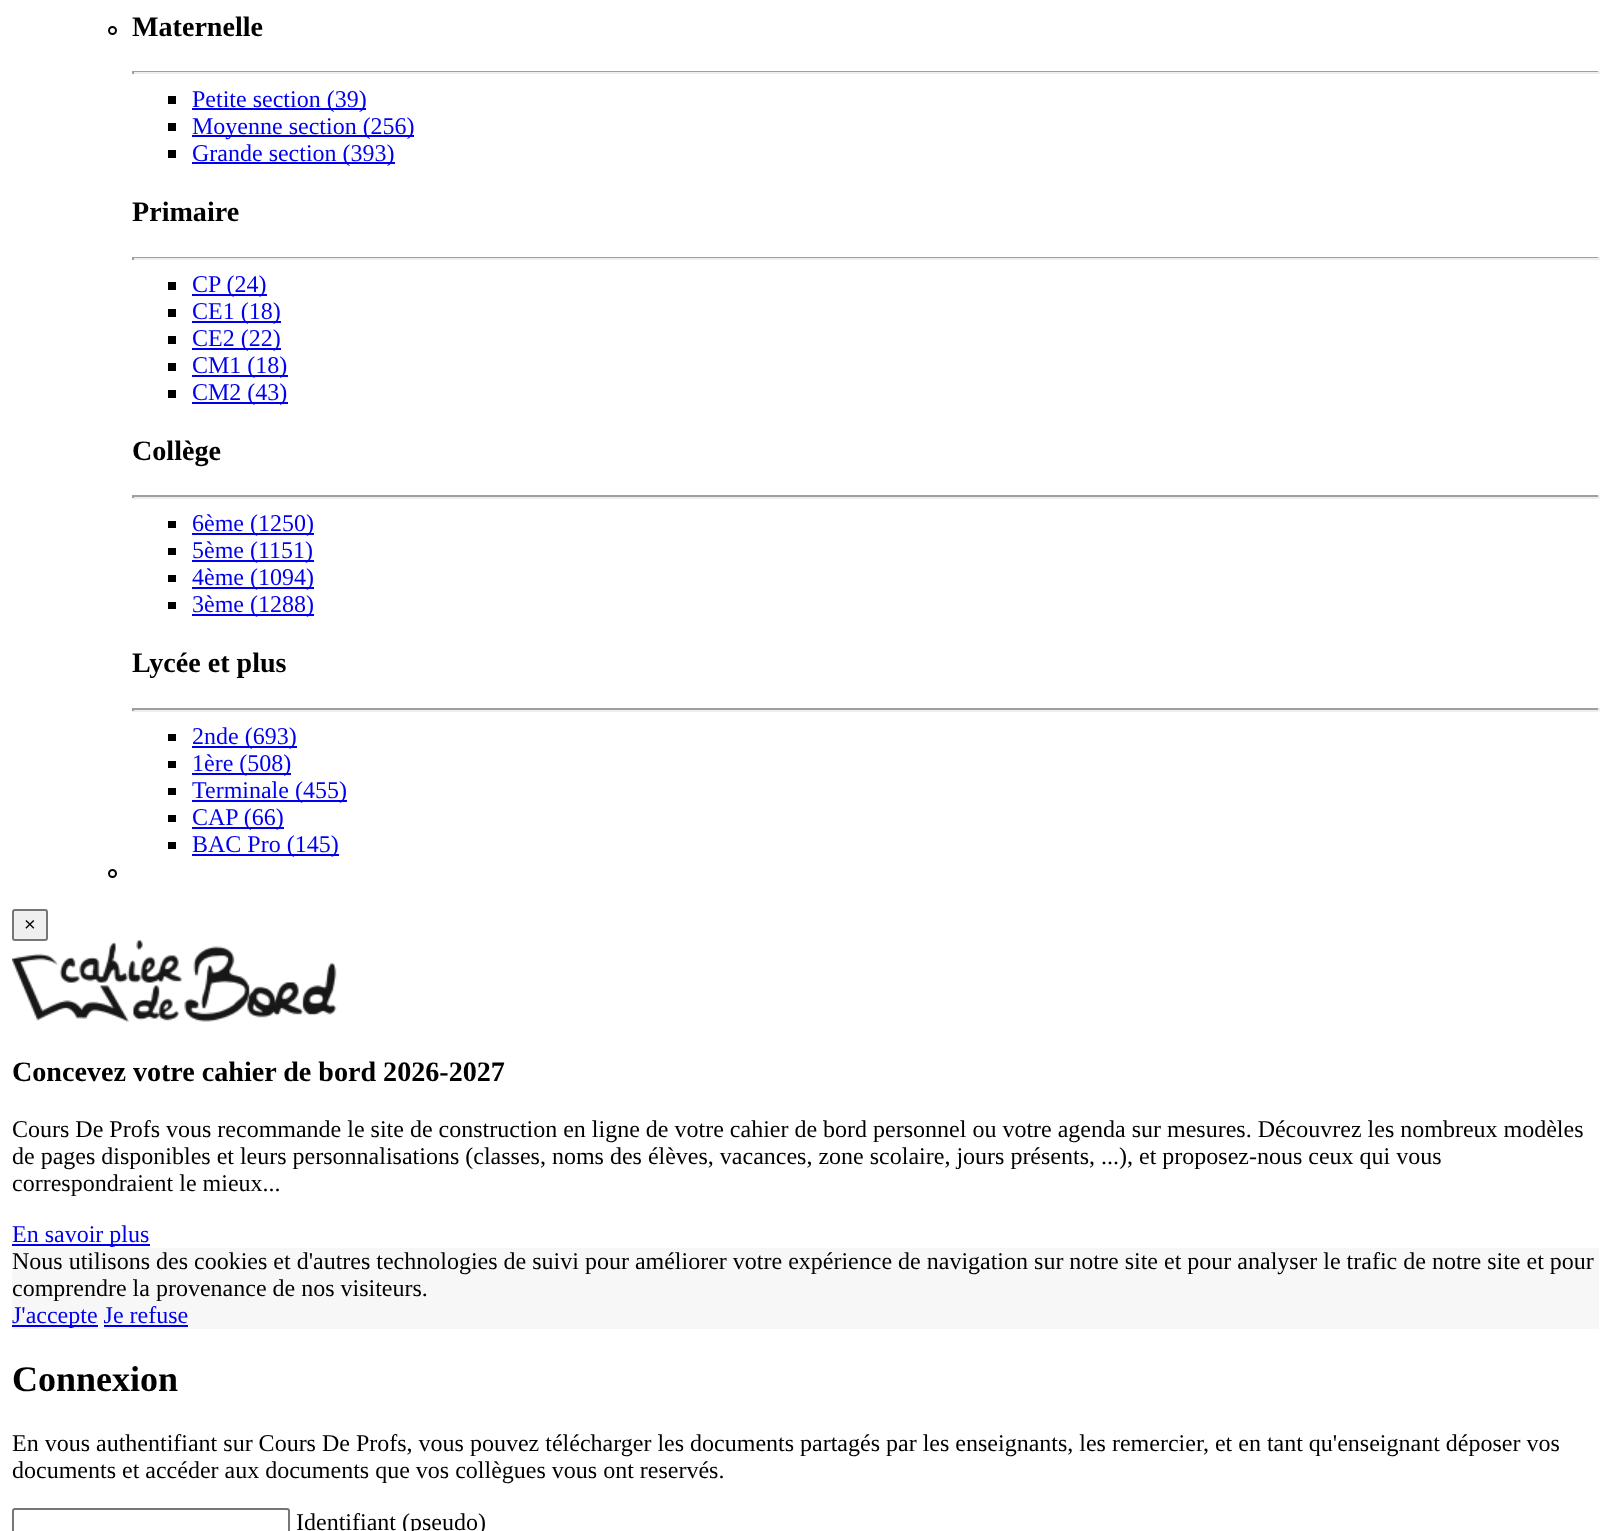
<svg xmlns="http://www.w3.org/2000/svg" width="1610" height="1531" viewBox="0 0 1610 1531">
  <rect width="100%" height="100%" fill="#ffffff"/>
  <circle cx="112.5" cy="30.5" r="3.5" fill="none" stroke="#000000" stroke-width="2"/>
  <text x="132" y="36" font-family="Liberation Serif" font-size="28.1" font-weight="bold" fill="#000000">Maternelle</text>
  <rect x="132" y="71" width="1467" height="1" fill="#9f9f9f"/>
  <rect x="1598" y="71" width="2" height="3" fill="#eeeeee"/>
  <rect x="132" y="72" width="1467" height="2" fill="#eeeeee"/>
  <rect x="132" y="71" width="2" height="3" fill="#9f9f9f"/>
  <rect x="168" y="96" width="8" height="8" fill="#000000"/>
  <rect x="192" y="108" width="174" height="2" fill="#0000ee"/>
  <text x="192" y="107" font-family="Liberation Serif" font-size="24" fill="#0000ee">Petite section (39)</text>
  <rect x="168" y="123" width="8" height="8" fill="#000000"/>
  <rect x="192" y="135" width="222" height="2" fill="#0000ee"/>
  <text x="192" y="134" font-family="Liberation Serif" font-size="24" fill="#0000ee">Moyenne section (256)</text>
  <rect x="168" y="150" width="8" height="8" fill="#000000"/>
  <rect x="192" y="162" width="203" height="2" fill="#0000ee"/>
  <text x="192" y="161" font-family="Liberation Serif" font-size="24" fill="#0000ee">Grande section (393)</text>
  <text x="132" y="221" font-family="Liberation Serif" font-size="28.1" font-weight="bold" fill="#000000">Primaire</text>
  <rect x="132" y="257" width="1467" height="1" fill="#9f9f9f"/>
  <rect x="1598" y="257" width="2" height="3" fill="#eeeeee"/>
  <rect x="132" y="258" width="1467" height="2" fill="#eeeeee"/>
  <rect x="132" y="257" width="2" height="3" fill="#9f9f9f"/>
  <rect x="168" y="282" width="8" height="8" fill="#000000"/>
  <rect x="192" y="294" width="75" height="2" fill="#0000ee"/>
  <text x="192" y="292" font-family="Liberation Serif" font-size="24" fill="#0000ee">CP (24)</text>
  <rect x="168" y="309" width="8" height="8" fill="#000000"/>
  <rect x="192" y="321" width="89" height="2" fill="#0000ee"/>
  <text x="192" y="319" font-family="Liberation Serif" font-size="24" fill="#0000ee">CE1 (18)</text>
  <rect x="168" y="336" width="8" height="8" fill="#000000"/>
  <rect x="192" y="348" width="89" height="2" fill="#0000ee"/>
  <text x="192" y="346" font-family="Liberation Serif" font-size="24" fill="#0000ee">CE2 (22)</text>
  <rect x="168" y="363" width="8" height="8" fill="#000000"/>
  <rect x="192" y="375" width="96" height="2" fill="#0000ee"/>
  <text x="192" y="373" font-family="Liberation Serif" font-size="24" fill="#0000ee">CM1 (18)</text>
  <rect x="168" y="390" width="8" height="8" fill="#000000"/>
  <rect x="192" y="402" width="96" height="2" fill="#0000ee"/>
  <text x="192" y="400" font-family="Liberation Serif" font-size="24" fill="#0000ee">CM2 (43)</text>
  <text x="132" y="460" font-family="Liberation Serif" font-size="28.1" font-weight="bold" fill="#000000">Collège</text>
  <rect x="132" y="495" width="1467" height="2" fill="#9f9f9f"/>
  <rect x="1598" y="495" width="2" height="3" fill="#eeeeee"/>
  <rect x="132" y="497" width="1467" height="2" fill="#eeeeee"/>
  <rect x="132" y="495" width="2" height="3" fill="#9f9f9f"/>
  <rect x="168" y="521" width="8" height="7" fill="#000000"/>
  <rect x="192" y="533" width="122" height="2" fill="#0000ee"/>
  <text x="192" y="531" font-family="Liberation Serif" font-size="24" fill="#0000ee">6ème (1250)</text>
  <rect x="168" y="548" width="8" height="7" fill="#000000"/>
  <rect x="192" y="560" width="122" height="2" fill="#0000ee"/>
  <text x="192" y="558" font-family="Liberation Serif" font-size="24" fill="#0000ee">5ème (1151)</text>
  <rect x="168" y="575" width="8" height="7" fill="#000000"/>
  <rect x="192" y="587" width="122" height="2" fill="#0000ee"/>
  <text x="192" y="585" font-family="Liberation Serif" font-size="24" fill="#0000ee">4ème (1094)</text>
  <rect x="168" y="602" width="8" height="7" fill="#000000"/>
  <rect x="192" y="614" width="122" height="2" fill="#0000ee"/>
  <text x="192" y="612" font-family="Liberation Serif" font-size="24" fill="#0000ee">3ème (1288)</text>
  <text x="132" y="672" font-family="Liberation Serif" font-size="28.1" font-weight="bold" fill="#000000">Lycée et plus</text>
  <rect x="132" y="708" width="1467" height="2" fill="#9f9f9f"/>
  <rect x="1598" y="708" width="2" height="3" fill="#eeeeee"/>
  <rect x="132" y="710" width="1467" height="2" fill="#eeeeee"/>
  <rect x="132" y="708" width="2" height="3" fill="#9f9f9f"/>
  <rect x="168" y="734" width="8" height="7" fill="#000000"/>
  <rect x="192" y="746" width="105" height="2" fill="#0000ee"/>
  <text x="192" y="744" font-family="Liberation Serif" font-size="24" fill="#0000ee">2nde (693)</text>
  <rect x="168" y="761" width="8" height="7" fill="#000000"/>
  <rect x="192" y="773" width="99" height="2" fill="#0000ee"/>
  <text x="192" y="771" font-family="Liberation Serif" font-size="24" fill="#0000ee">1ère (508)</text>
  <rect x="168" y="788" width="8" height="7" fill="#000000"/>
  <rect x="192" y="800" width="155" height="2" fill="#0000ee"/>
  <text x="192" y="798" font-family="Liberation Serif" font-size="24" fill="#0000ee">Terminale (455)</text>
  <rect x="168" y="815" width="8" height="7" fill="#000000"/>
  <rect x="192" y="827" width="92" height="2" fill="#0000ee"/>
  <text x="192" y="825" font-family="Liberation Serif" font-size="24" fill="#0000ee">CAP (66)</text>
  <rect x="168" y="842" width="8" height="7" fill="#000000"/>
  <rect x="192" y="854" width="147" height="2" fill="#0000ee"/>
  <text x="192" y="852" font-family="Liberation Serif" font-size="24" fill="#0000ee">BAC Pro (145)</text>
  <circle cx="112.5" cy="873.5" r="3.5" fill="none" stroke="#000000" stroke-width="2"/>
  <rect x="13" y="910" width="34" height="30" rx="2" fill="#efefef" stroke="#767676" stroke-width="2"/>
  <text x="24" y="931" font-family="Liberation Sans" font-size="20" fill="#000000">×</text>
  <image x="12" y="940" width="325" height="82" href="img1.png"/>
  <text x="12" y="1081" font-family="Liberation Serif" font-size="28.1" font-weight="bold" fill="#000000">Concevez votre cahier de bord 2026-2027</text>
  <text x="12" y="1137" font-family="Liberation Serif" font-size="24" fill="#000000">Cours De Profs vous recommande le site de construction en ligne de votre cahier de bord personnel ou votre agenda sur mesures. Découvrez les nombreux modèles</text>
  <text x="12" y="1164" font-family="Liberation Serif" font-size="24" fill="#000000">de pages disponibles et leurs personnalisations (classes, noms des élèves, vacances, zone scolaire, jours présents, ...), et proposez-nous ceux qui vous</text>
  <text x="12" y="1191" font-family="Liberation Serif" font-size="24" fill="#000000">correspondraient le mieux...</text>
  <rect x="12" y="1244" width="138" height="2" fill="#0000ee"/>
  <text x="12" y="1242" font-family="Liberation Serif" font-size="24" fill="#0000ee">En savoir plus</text>
  <rect x="12" y="1248" width="1587" height="81" fill="#f7f7f7"/>
  <text x="12" y="1269" font-family="Liberation Serif" font-size="24" fill="#000000">Nous utilisons des cookies et d'autres technologies de suivi pour améliorer votre expérience de navigation sur notre site et pour analyser le trafic de notre site et pour</text>
  <text x="12" y="1296" font-family="Liberation Serif" font-size="24" fill="#000000">comprendre la provenance de nos visiteurs.</text>
  <rect x="12" y="1325" width="86" height="2" fill="#0000ee"/>
  <text x="12" y="1323" font-family="Liberation Serif" font-size="24" fill="#0000ee">J'accepte Je refuse</text>
  <rect x="104" y="1325" width="84" height="2" fill="#0000ee"/>
  <text x="12" y="1391" font-family="Liberation Serif" font-size="36" font-weight="bold" fill="#000000">Connexion</text>
  <text x="12" y="1451" font-family="Liberation Serif" font-size="24" fill="#000000">En vous authentifiant sur Cours De Profs, vous pouvez télécharger les documents partagés par les enseignants, les remercier, et en tant qu'enseignant déposer vos</text>
  <text x="12" y="1478" font-family="Liberation Serif" font-size="24" fill="#000000">documents et accéder aux documents que vos collègues vous ont reservés.</text>
  <rect x="13" y="1509" width="276" height="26" rx="2" fill="none" stroke="#767676" stroke-width="2"/>
  <text x="296" y="1530" font-family="Liberation Serif" font-size="24" fill="#000000">Identifiant (pseudo)</text>
</svg>
